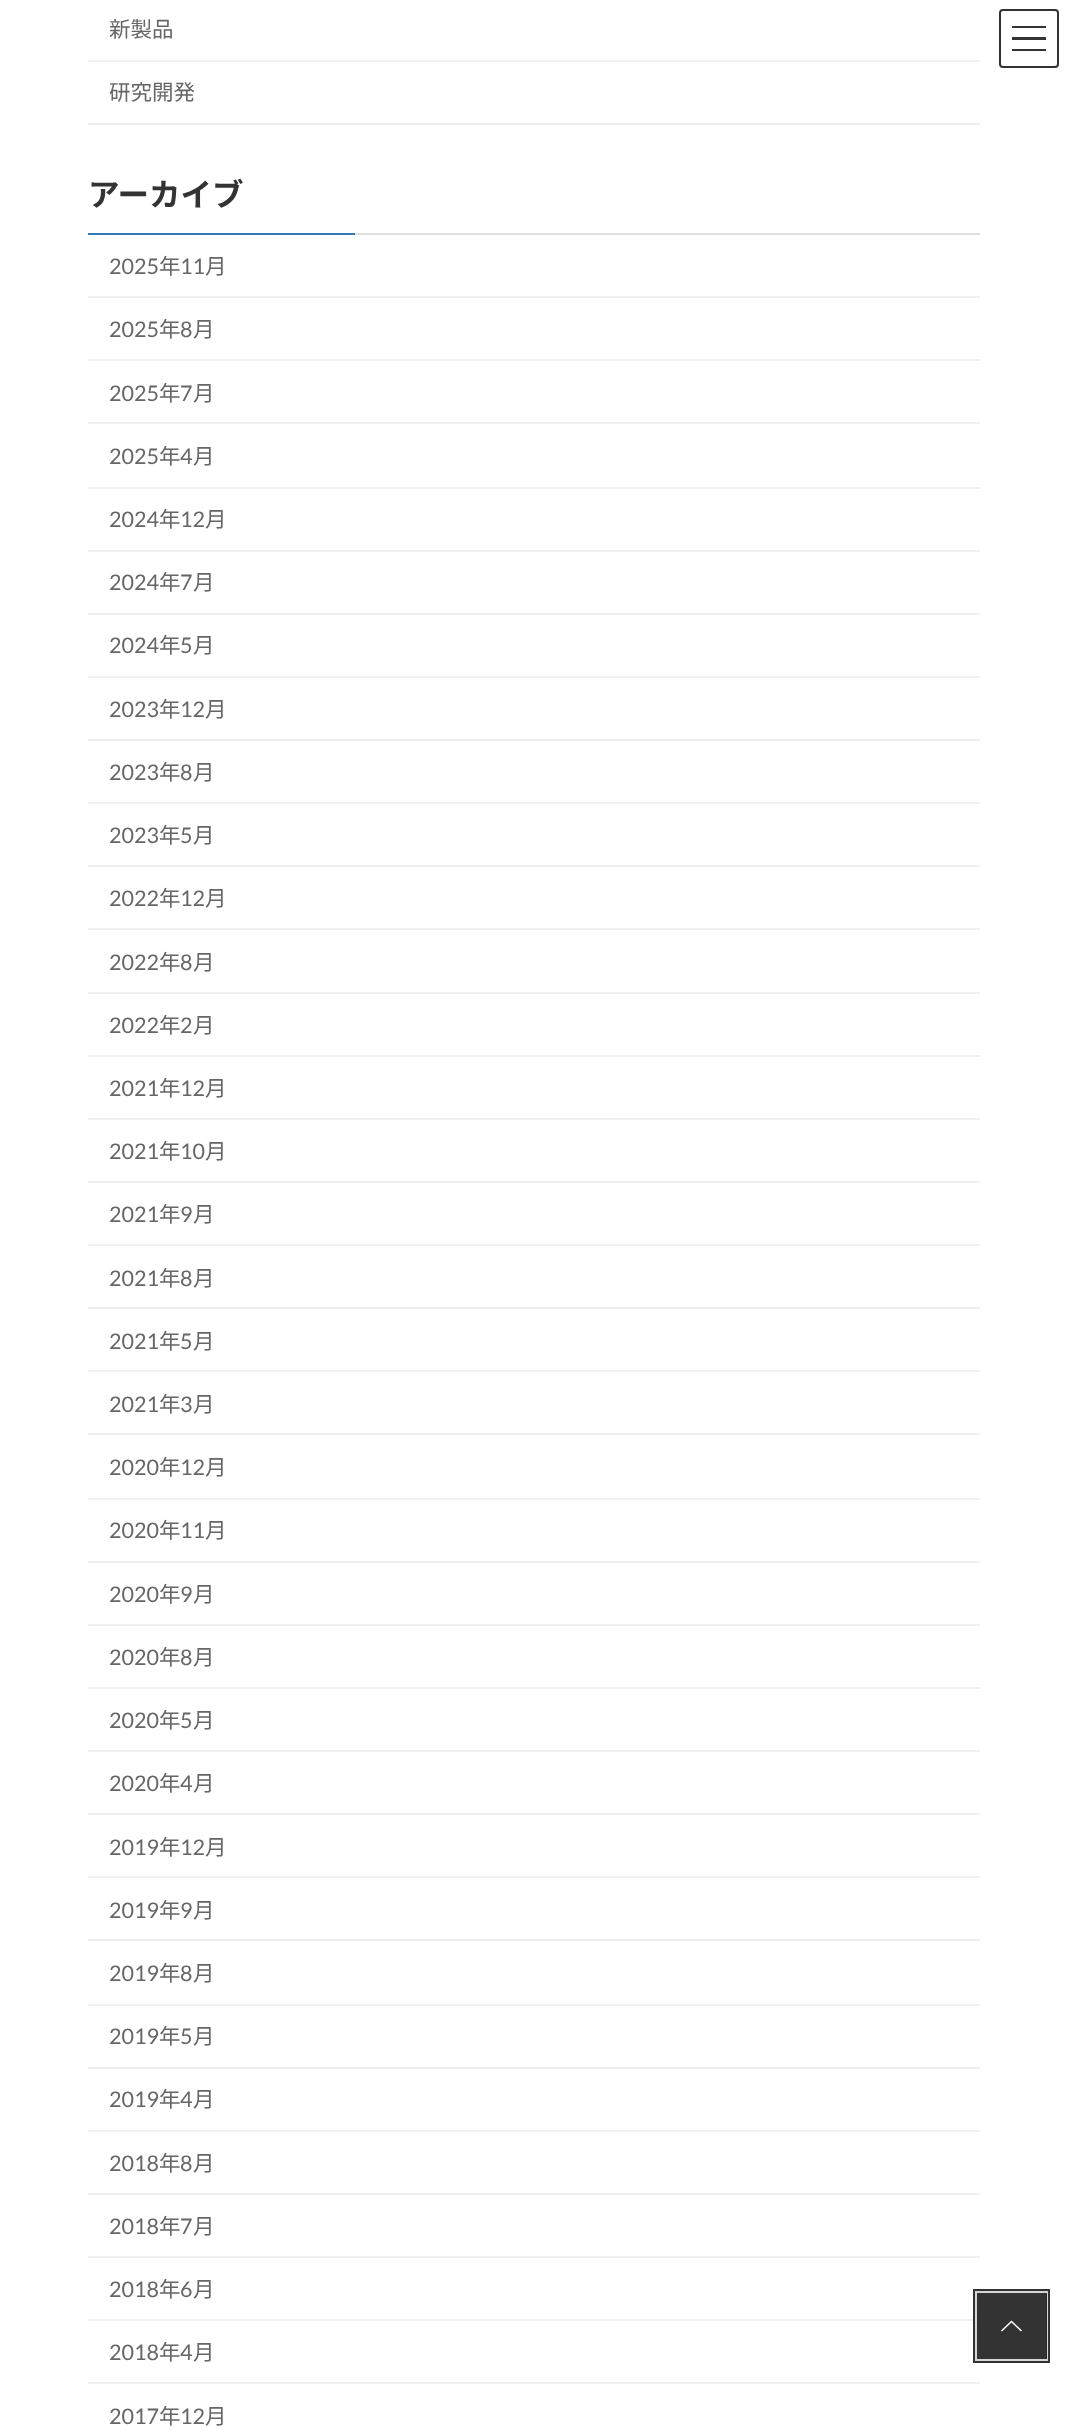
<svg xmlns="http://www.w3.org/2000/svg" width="1067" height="2431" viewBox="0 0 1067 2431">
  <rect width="100%" height="100%" fill="#ffffff"/>
  <rect x="88" y="60" width="892" height="2" fill="#f0f0f0"/>
  <text x="109" y="37" font-family="Noto Sans JP" font-size="21.5" fill="#666666">新製品</text>
  <rect x="88" y="123" width="892" height="2" fill="#f0f0f0"/>
  <text x="109" y="100" font-family="Noto Sans JP" font-size="21.5" fill="#666666">研究開発</text>
  <rect x="355" y="233" width="625" height="2" fill="#e0e0e0"/>
  <text x="88" y="206" font-family="Noto Sans JP" font-size="31.5" font-weight="bold" fill="#333333">アーカイブ</text>
  <rect x="88" y="233" width="267" height="2" fill="#337ab7"/>
  <rect x="88" y="296" width="892" height="2" fill="#f0f0f0"/>
  <text x="109" y="274" font-family="Lato" font-size="21.5" fill="#666666">2025</text>
  <text x="159" y="274" font-family="Noto Sans JP" font-size="21.5" fill="#666666">年</text>
  <text x="180" y="274" font-family="Lato" font-size="21.5" fill="#666666">11</text>
  <text x="205" y="274" font-family="Noto Sans JP" font-size="21.5" fill="#666666">月</text>
  <rect x="88" y="359" width="892" height="2" fill="#f0f0f0"/>
  <text x="109" y="337" font-family="Lato" font-size="21.5" fill="#666666">2025</text>
  <text x="159" y="337" font-family="Noto Sans JP" font-size="21.5" fill="#666666">年</text>
  <text x="180" y="337" font-family="Lato" font-size="21.5" fill="#666666">8</text>
  <text x="193" y="337" font-family="Noto Sans JP" font-size="21.5" fill="#666666">月</text>
  <rect x="88" y="422" width="892" height="2" fill="#f0f0f0"/>
  <text x="109" y="401" font-family="Lato" font-size="21.5" fill="#666666">2025</text>
  <text x="159" y="401" font-family="Noto Sans JP" font-size="21.5" fill="#666666">年</text>
  <text x="180" y="401" font-family="Lato" font-size="21.5" fill="#666666">7</text>
  <text x="193" y="401" font-family="Noto Sans JP" font-size="21.5" fill="#666666">月</text>
  <rect x="88" y="487" width="892" height="2" fill="#f0f0f0"/>
  <text x="109" y="464" font-family="Lato" font-size="21.5" fill="#666666">2025</text>
  <text x="159" y="464" font-family="Noto Sans JP" font-size="21.5" fill="#666666">年</text>
  <text x="180" y="464" font-family="Lato" font-size="21.5" fill="#666666">4</text>
  <text x="193" y="464" font-family="Noto Sans JP" font-size="21.5" fill="#666666">月</text>
  <rect x="88" y="550" width="892" height="2" fill="#f0f0f0"/>
  <text x="109" y="527" font-family="Lato" font-size="21.5" fill="#666666">2024</text>
  <text x="159" y="527" font-family="Noto Sans JP" font-size="21.5" fill="#666666">年</text>
  <text x="180" y="527" font-family="Lato" font-size="21.5" fill="#666666">12</text>
  <text x="205" y="527" font-family="Noto Sans JP" font-size="21.5" fill="#666666">月</text>
  <rect x="88" y="613" width="892" height="2" fill="#f0f0f0"/>
  <text x="109" y="590" font-family="Lato" font-size="21.5" fill="#666666">2024</text>
  <text x="159" y="590" font-family="Noto Sans JP" font-size="21.5" fill="#666666">年</text>
  <text x="180" y="590" font-family="Lato" font-size="21.5" fill="#666666">7</text>
  <text x="193" y="590" font-family="Noto Sans JP" font-size="21.5" fill="#666666">月</text>
  <rect x="88" y="676" width="892" height="2" fill="#f0f0f0"/>
  <text x="109" y="653" font-family="Lato" font-size="21.5" fill="#666666">2024</text>
  <text x="159" y="653" font-family="Noto Sans JP" font-size="21.5" fill="#666666">年</text>
  <text x="180" y="653" font-family="Lato" font-size="21.5" fill="#666666">5</text>
  <text x="193" y="653" font-family="Noto Sans JP" font-size="21.5" fill="#666666">月</text>
  <rect x="88" y="739" width="892" height="2" fill="#f0f0f0"/>
  <text x="109" y="717" font-family="Lato" font-size="21.5" fill="#666666">2023</text>
  <text x="159" y="717" font-family="Noto Sans JP" font-size="21.5" fill="#666666">年</text>
  <text x="180" y="717" font-family="Lato" font-size="21.5" fill="#666666">12</text>
  <text x="205" y="717" font-family="Noto Sans JP" font-size="21.5" fill="#666666">月</text>
  <rect x="88" y="802" width="892" height="2" fill="#f0f0f0"/>
  <text x="109" y="780" font-family="Lato" font-size="21.5" fill="#666666">2023</text>
  <text x="159" y="780" font-family="Noto Sans JP" font-size="21.5" fill="#666666">年</text>
  <text x="180" y="780" font-family="Lato" font-size="21.5" fill="#666666">8</text>
  <text x="193" y="780" font-family="Noto Sans JP" font-size="21.5" fill="#666666">月</text>
  <rect x="88" y="865" width="892" height="2" fill="#f0f0f0"/>
  <text x="109" y="843" font-family="Lato" font-size="21.5" fill="#666666">2023</text>
  <text x="159" y="843" font-family="Noto Sans JP" font-size="21.5" fill="#666666">年</text>
  <text x="180" y="843" font-family="Lato" font-size="21.5" fill="#666666">5</text>
  <text x="193" y="843" font-family="Noto Sans JP" font-size="21.5" fill="#666666">月</text>
  <rect x="88" y="928" width="892" height="2" fill="#f0f0f0"/>
  <text x="109" y="906" font-family="Lato" font-size="21.5" fill="#666666">2022</text>
  <text x="159" y="906" font-family="Noto Sans JP" font-size="21.5" fill="#666666">年</text>
  <text x="180" y="906" font-family="Lato" font-size="21.5" fill="#666666">12</text>
  <text x="205" y="906" font-family="Noto Sans JP" font-size="21.5" fill="#666666">月</text>
  <rect x="88" y="992" width="892" height="2" fill="#f0f0f0"/>
  <text x="109" y="970" font-family="Lato" font-size="21.5" fill="#666666">2022</text>
  <text x="159" y="970" font-family="Noto Sans JP" font-size="21.5" fill="#666666">年</text>
  <text x="180" y="970" font-family="Lato" font-size="21.5" fill="#666666">8</text>
  <text x="193" y="970" font-family="Noto Sans JP" font-size="21.5" fill="#666666">月</text>
  <rect x="88" y="1055" width="892" height="2" fill="#f0f0f0"/>
  <text x="109" y="1033" font-family="Lato" font-size="21.5" fill="#666666">2022</text>
  <text x="159" y="1033" font-family="Noto Sans JP" font-size="21.5" fill="#666666">年</text>
  <text x="180" y="1033" font-family="Lato" font-size="21.5" fill="#666666">2</text>
  <text x="193" y="1033" font-family="Noto Sans JP" font-size="21.5" fill="#666666">月</text>
  <rect x="88" y="1118" width="892" height="2" fill="#f0f0f0"/>
  <text x="109" y="1096" font-family="Lato" font-size="21.5" fill="#666666">2021</text>
  <text x="159" y="1096" font-family="Noto Sans JP" font-size="21.5" fill="#666666">年</text>
  <text x="180" y="1096" font-family="Lato" font-size="21.5" fill="#666666">12</text>
  <text x="205" y="1096" font-family="Noto Sans JP" font-size="21.5" fill="#666666">月</text>
  <rect x="88" y="1181" width="892" height="2" fill="#f0f0f0"/>
  <text x="109" y="1159" font-family="Lato" font-size="21.5" fill="#666666">2021</text>
  <text x="159" y="1159" font-family="Noto Sans JP" font-size="21.5" fill="#666666">年</text>
  <text x="180" y="1159" font-family="Lato" font-size="21.5" fill="#666666">10</text>
  <text x="205" y="1159" font-family="Noto Sans JP" font-size="21.5" fill="#666666">月</text>
  <rect x="88" y="1244" width="892" height="2" fill="#f0f0f0"/>
  <text x="109" y="1222" font-family="Lato" font-size="21.5" fill="#666666">2021</text>
  <text x="159" y="1222" font-family="Noto Sans JP" font-size="21.5" fill="#666666">年</text>
  <text x="180" y="1222" font-family="Lato" font-size="21.5" fill="#666666">9</text>
  <text x="193" y="1222" font-family="Noto Sans JP" font-size="21.5" fill="#666666">月</text>
  <rect x="88" y="1307" width="892" height="2" fill="#f0f0f0"/>
  <text x="109" y="1286" font-family="Lato" font-size="21.5" fill="#666666">2021</text>
  <text x="159" y="1286" font-family="Noto Sans JP" font-size="21.5" fill="#666666">年</text>
  <text x="180" y="1286" font-family="Lato" font-size="21.5" fill="#666666">8</text>
  <text x="193" y="1286" font-family="Noto Sans JP" font-size="21.5" fill="#666666">月</text>
  <rect x="88" y="1370" width="892" height="2" fill="#f0f0f0"/>
  <text x="109" y="1349" font-family="Lato" font-size="21.5" fill="#666666">2021</text>
  <text x="159" y="1349" font-family="Noto Sans JP" font-size="21.5" fill="#666666">年</text>
  <text x="180" y="1349" font-family="Lato" font-size="21.5" fill="#666666">5</text>
  <text x="193" y="1349" font-family="Noto Sans JP" font-size="21.5" fill="#666666">月</text>
  <rect x="88" y="1433" width="892" height="2" fill="#f0f0f0"/>
  <text x="109" y="1412" font-family="Lato" font-size="21.5" fill="#666666">2021</text>
  <text x="159" y="1412" font-family="Noto Sans JP" font-size="21.5" fill="#666666">年</text>
  <text x="180" y="1412" font-family="Lato" font-size="21.5" fill="#666666">3</text>
  <text x="193" y="1412" font-family="Noto Sans JP" font-size="21.5" fill="#666666">月</text>
  <rect x="88" y="1498" width="892" height="2" fill="#f0f0f0"/>
  <text x="109" y="1475" font-family="Lato" font-size="21.5" fill="#666666">2020</text>
  <text x="159" y="1475" font-family="Noto Sans JP" font-size="21.5" fill="#666666">年</text>
  <text x="180" y="1475" font-family="Lato" font-size="21.5" fill="#666666">12</text>
  <text x="205" y="1475" font-family="Noto Sans JP" font-size="21.5" fill="#666666">月</text>
  <rect x="88" y="1561" width="892" height="2" fill="#f0f0f0"/>
  <text x="109" y="1538" font-family="Lato" font-size="21.5" fill="#666666">2020</text>
  <text x="159" y="1538" font-family="Noto Sans JP" font-size="21.5" fill="#666666">年</text>
  <text x="180" y="1538" font-family="Lato" font-size="21.5" fill="#666666">11</text>
  <text x="205" y="1538" font-family="Noto Sans JP" font-size="21.5" fill="#666666">月</text>
  <rect x="88" y="1624" width="892" height="2" fill="#f0f0f0"/>
  <text x="109" y="1602" font-family="Lato" font-size="21.5" fill="#666666">2020</text>
  <text x="159" y="1602" font-family="Noto Sans JP" font-size="21.5" fill="#666666">年</text>
  <text x="180" y="1602" font-family="Lato" font-size="21.5" fill="#666666">9</text>
  <text x="193" y="1602" font-family="Noto Sans JP" font-size="21.5" fill="#666666">月</text>
  <rect x="88" y="1687" width="892" height="2" fill="#f0f0f0"/>
  <text x="109" y="1665" font-family="Lato" font-size="21.5" fill="#666666">2020</text>
  <text x="159" y="1665" font-family="Noto Sans JP" font-size="21.5" fill="#666666">年</text>
  <text x="180" y="1665" font-family="Lato" font-size="21.5" fill="#666666">8</text>
  <text x="193" y="1665" font-family="Noto Sans JP" font-size="21.5" fill="#666666">月</text>
  <rect x="88" y="1750" width="892" height="2" fill="#f0f0f0"/>
  <text x="109" y="1728" font-family="Lato" font-size="21.5" fill="#666666">2020</text>
  <text x="159" y="1728" font-family="Noto Sans JP" font-size="21.5" fill="#666666">年</text>
  <text x="180" y="1728" font-family="Lato" font-size="21.5" fill="#666666">5</text>
  <text x="193" y="1728" font-family="Noto Sans JP" font-size="21.5" fill="#666666">月</text>
  <rect x="88" y="1813" width="892" height="2" fill="#f0f0f0"/>
  <text x="109" y="1791" font-family="Lato" font-size="21.5" fill="#666666">2020</text>
  <text x="159" y="1791" font-family="Noto Sans JP" font-size="21.5" fill="#666666">年</text>
  <text x="180" y="1791" font-family="Lato" font-size="21.5" fill="#666666">4</text>
  <text x="193" y="1791" font-family="Noto Sans JP" font-size="21.5" fill="#666666">月</text>
  <rect x="88" y="1876" width="892" height="2" fill="#f0f0f0"/>
  <text x="109" y="1855" font-family="Lato" font-size="21.5" fill="#666666">2019</text>
  <text x="159" y="1855" font-family="Noto Sans JP" font-size="21.5" fill="#666666">年</text>
  <text x="180" y="1855" font-family="Lato" font-size="21.5" fill="#666666">12</text>
  <text x="205" y="1855" font-family="Noto Sans JP" font-size="21.5" fill="#666666">月</text>
  <rect x="88" y="1939" width="892" height="2" fill="#f0f0f0"/>
  <text x="109" y="1918" font-family="Lato" font-size="21.5" fill="#666666">2019</text>
  <text x="159" y="1918" font-family="Noto Sans JP" font-size="21.5" fill="#666666">年</text>
  <text x="180" y="1918" font-family="Lato" font-size="21.5" fill="#666666">9</text>
  <text x="193" y="1918" font-family="Noto Sans JP" font-size="21.5" fill="#666666">月</text>
  <rect x="88" y="2004" width="892" height="2" fill="#f0f0f0"/>
  <text x="109" y="1981" font-family="Lato" font-size="21.5" fill="#666666">2019</text>
  <text x="159" y="1981" font-family="Noto Sans JP" font-size="21.5" fill="#666666">年</text>
  <text x="180" y="1981" font-family="Lato" font-size="21.5" fill="#666666">8</text>
  <text x="193" y="1981" font-family="Noto Sans JP" font-size="21.5" fill="#666666">月</text>
  <rect x="88" y="2067" width="892" height="2" fill="#f0f0f0"/>
  <text x="109" y="2044" font-family="Lato" font-size="21.5" fill="#666666">2019</text>
  <text x="159" y="2044" font-family="Noto Sans JP" font-size="21.5" fill="#666666">年</text>
  <text x="180" y="2044" font-family="Lato" font-size="21.5" fill="#666666">5</text>
  <text x="193" y="2044" font-family="Noto Sans JP" font-size="21.5" fill="#666666">月</text>
  <rect x="88" y="2130" width="892" height="2" fill="#f0f0f0"/>
  <text x="109" y="2107" font-family="Lato" font-size="21.5" fill="#666666">2019</text>
  <text x="159" y="2107" font-family="Noto Sans JP" font-size="21.5" fill="#666666">年</text>
  <text x="180" y="2107" font-family="Lato" font-size="21.5" fill="#666666">4</text>
  <text x="193" y="2107" font-family="Noto Sans JP" font-size="21.5" fill="#666666">月</text>
  <rect x="88" y="2193" width="892" height="2" fill="#f0f0f0"/>
  <text x="109" y="2171" font-family="Lato" font-size="21.5" fill="#666666">2018</text>
  <text x="159" y="2171" font-family="Noto Sans JP" font-size="21.5" fill="#666666">年</text>
  <text x="180" y="2171" font-family="Lato" font-size="21.5" fill="#666666">8</text>
  <text x="193" y="2171" font-family="Noto Sans JP" font-size="21.5" fill="#666666">月</text>
  <rect x="88" y="2256" width="892" height="2" fill="#f0f0f0"/>
  <text x="109" y="2234" font-family="Lato" font-size="21.5" fill="#666666">2018</text>
  <text x="159" y="2234" font-family="Noto Sans JP" font-size="21.5" fill="#666666">年</text>
  <text x="180" y="2234" font-family="Lato" font-size="21.5" fill="#666666">7</text>
  <text x="193" y="2234" font-family="Noto Sans JP" font-size="21.5" fill="#666666">月</text>
  <rect x="88" y="2319" width="892" height="2" fill="#f0f0f0"/>
  <text x="109" y="2297" font-family="Lato" font-size="21.5" fill="#666666">2018</text>
  <text x="159" y="2297" font-family="Noto Sans JP" font-size="21.5" fill="#666666">年</text>
  <text x="180" y="2297" font-family="Lato" font-size="21.5" fill="#666666">6</text>
  <text x="193" y="2297" font-family="Noto Sans JP" font-size="21.5" fill="#666666">月</text>
  <rect x="88" y="2382" width="892" height="2" fill="#f0f0f0"/>
  <text x="109" y="2360" font-family="Lato" font-size="21.5" fill="#666666">2018</text>
  <text x="159" y="2360" font-family="Noto Sans JP" font-size="21.5" fill="#666666">年</text>
  <text x="180" y="2360" font-family="Lato" font-size="21.5" fill="#666666">4</text>
  <text x="193" y="2360" font-family="Noto Sans JP" font-size="21.5" fill="#666666">月</text>
  <text x="109" y="2424" font-family="Lato" font-size="21.5" fill="#666666">2017</text>
  <text x="159" y="2424" font-family="Noto Sans JP" font-size="21.5" fill="#666666">年</text>
  <text x="180" y="2424" font-family="Lato" font-size="21.5" fill="#666666">12</text>
  <text x="205" y="2424" font-family="Noto Sans JP" font-size="21.5" fill="#666666">月</text>
  <rect x="1012" y="26" width="34" height="2" fill="#333333"/>
  <rect x="1012" y="37" width="34" height="3" fill="#333333"/>
  <rect x="1012" y="49" width="34" height="2" fill="#333333"/>
  <rect x="1000" y="10" width="58" height="57" rx="3" fill="none" stroke="#333333" stroke-width="2"/>
  <rect x="975" y="2291" width="73" height="70" fill="none" stroke="#000000" stroke-opacity="0.8" stroke-width="4"/>
  <rect x="976" y="2292" width="71" height="68" fill="none" stroke="#ffffff" stroke-opacity="0.8" stroke-width="2"/>
  <rect x="977" y="2293" width="70" height="66" fill="#000000" fill-opacity="0.8"/>
  <path d="M1022 2330.5L1021 2331.5L1011.5 2322.5L1002 2331.5L1001 2330.5L1011.5 2320.5Z" fill="#ffffff"/>
</svg>
